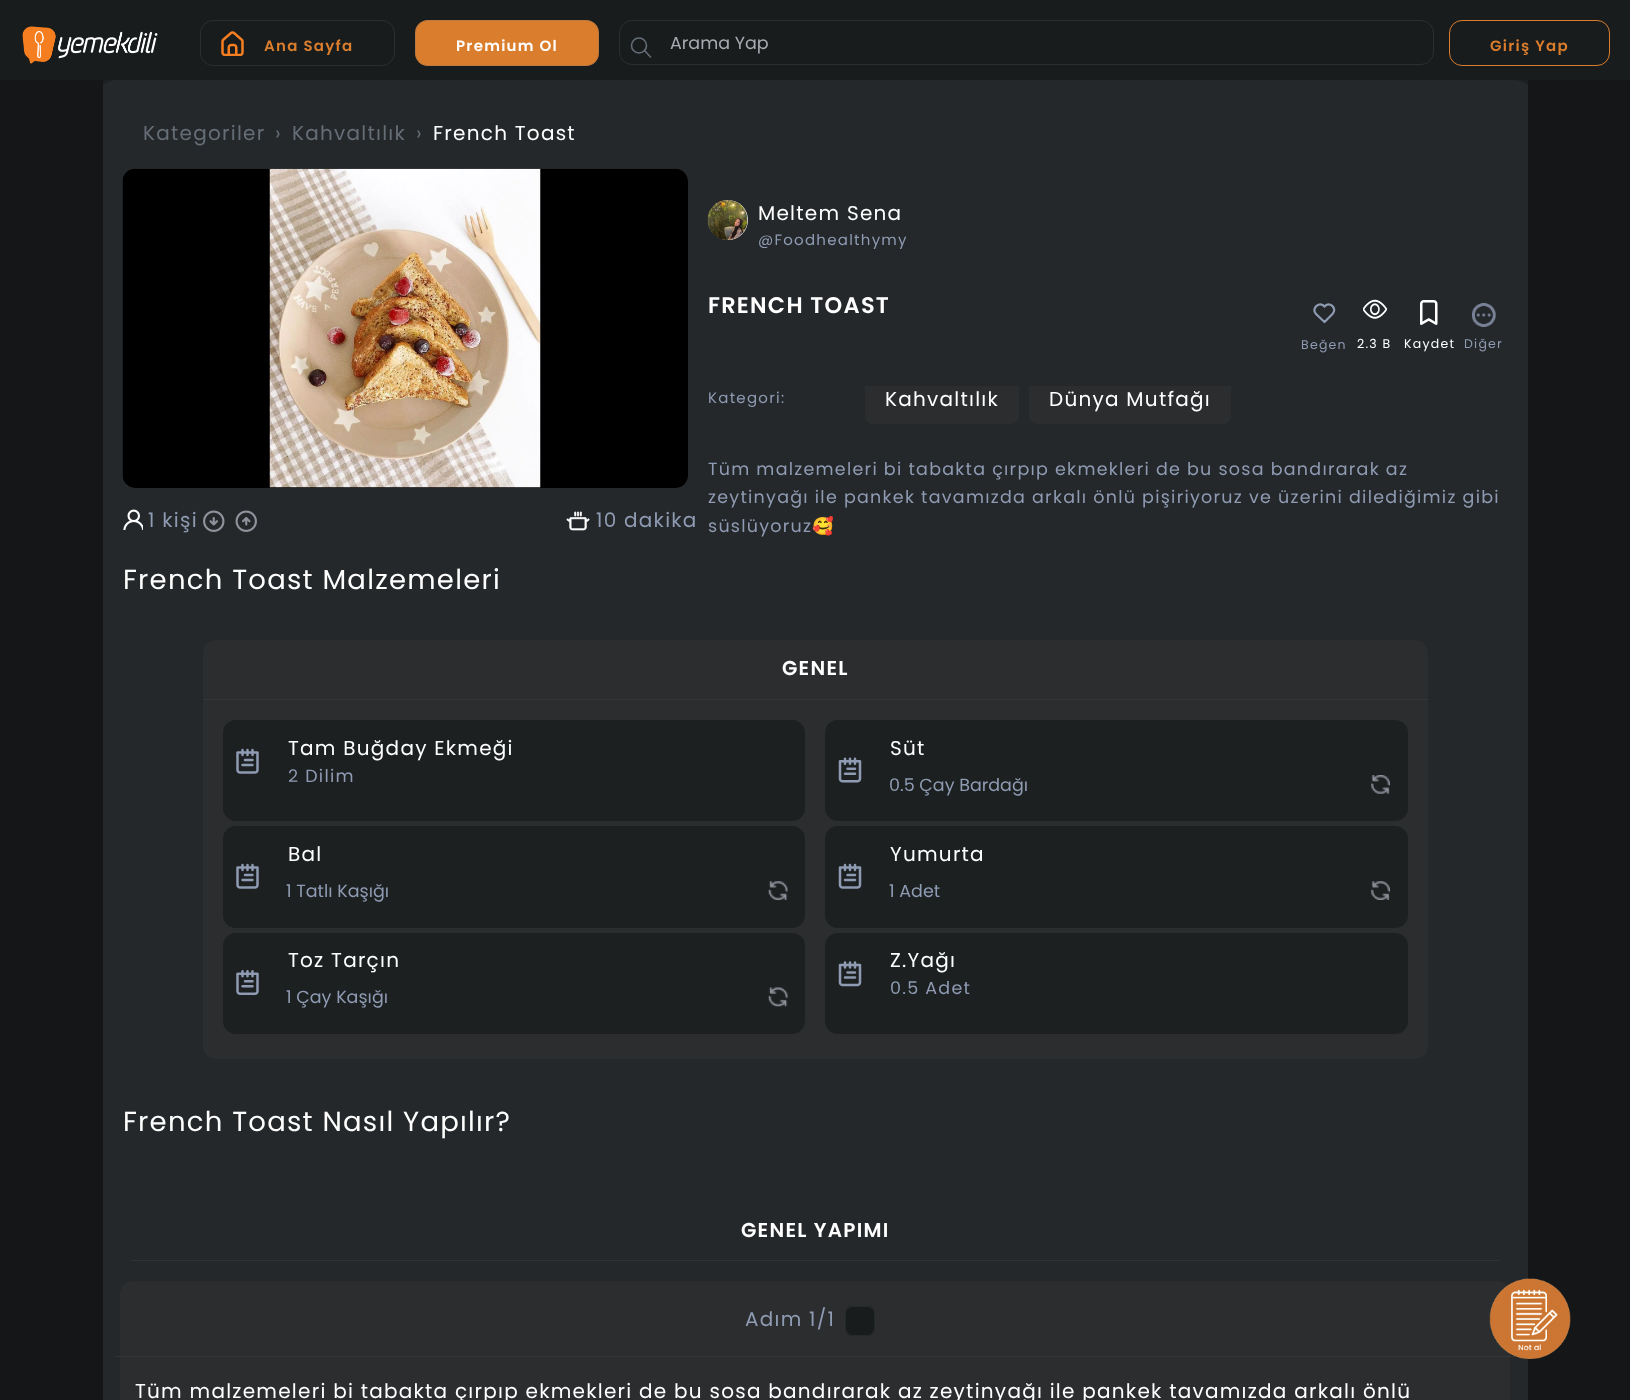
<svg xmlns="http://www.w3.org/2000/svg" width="1630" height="1400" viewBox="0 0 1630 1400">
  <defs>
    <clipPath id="clip1"><rect x="103" y="80" width="1425" height="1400"/></clipPath>
  </defs>
  <rect width="100%" height="100%" fill="#141617"/>
  <rect x="0" y="0" width="1630" height="80" fill="#181c1d"/>
  <image x="22" y="26" width="136" height="38" href="img1.png"/>
  <rect x="200.5" y="20.5" width="194" height="45" rx="12.5" fill="none" stroke="#2a2f33"/>
  <image x="221" y="31" width="23" height="25" href="img2.png"/>
  <text x="264" y="51" font-family="Poppins" font-size="15" font-weight="600" letter-spacing="1.25" fill="#da7d2d">Ana Sayfa</text>
  <rect x="415" y="20" width="184" height="46" rx="13" fill="#da7d2d"/>
  <rect x="415.5" y="20.5" width="183" height="45" rx="12.5" fill="none" stroke="#656d77" stroke-opacity="0.24"/>
  <text x="456" y="51" font-family="Poppins" font-size="15" font-weight="600" letter-spacing="1.25" fill="#ffffff">Premium Ol</text>
  <rect x="619.5" y="20.5" width="814" height="44" rx="12.5" fill="none" stroke="#2a2f33"/>
  <circle cx="639" cy="45.5" r="7.5" fill="none" stroke="#656d77" stroke-width="1.6"/>
  <path d="M650.5 57L644.5 50.5" fill="none" stroke="#656d77" stroke-width="1.6" stroke-linecap="round" stroke-linejoin="round"/>
  <text x="670" y="49" font-family="Poppins" font-size="17.5" fill="#a7abb1">Arama Yap</text>
  <rect x="1449.5" y="20.5" width="160" height="45" rx="12.5" fill="none" stroke="#da7d2d"/>
  <text x="1490" y="51" font-family="Poppins" font-size="15" font-weight="600" letter-spacing="1.25" fill="#da7d2d">Giriş Yap</text>
  <rect x="103" y="80" width="1425" height="5" fill="#1c2021"/>
  <g clip-path="url(#clip1)">
    <path d="M118 80H1513C1527 80 1538 91 1538 105V1400H93V105C93 91 104 80 118 80Z" fill="#24282a"/>
  </g>
  <rect x="115" y="1356" width="1400" height="1" fill="#2e3336"/>
  <text x="143" y="140" font-family="Poppins" font-size="20" letter-spacing="1.25" fill="#656d77">Kategoriler</text>
  <text x="275" y="140" font-family="Poppins" font-size="20" letter-spacing="1.25" fill="#656d77">›</text>
  <text x="292" y="140" font-family="Poppins" font-size="20" letter-spacing="1.25" fill="#656d77">Kahvaltılık</text>
  <text x="416" y="140" font-family="Poppins" font-size="20" letter-spacing="1.25" fill="#656d77">›</text>
  <text x="433" y="140" font-family="Poppins" font-size="20" letter-spacing="1.25" fill="#ffffff">French Toast</text>
  <rect x="123" y="169" width="565" height="319" rx="13" fill="#000000"/>
  <image x="122" y="168" width="565" height="320" href="img3.png"/>
  <image x="123" y="509" width="20" height="21" href="img4.png"/>
  <text x="148" y="527" font-family="Poppins" font-size="20" letter-spacing="1.25" fill="#8f9bb3">1 kişi</text>
  <image x="203" y="510" width="22" height="22" href="img5.png"/>
  <image x="235" y="510" width="22" height="22" href="img6.png"/>
  <image x="566" y="511" width="24" height="20" href="img7.png"/>
  <text x="596" y="527" font-family="Poppins" font-size="20" letter-spacing="1.25" fill="#8f9bb3">10 dakika</text>
  <circle cx="728" cy="220" r="20" fill="#f0f2f6"/>
  <image x="707" y="200" width="41" height="40" href="img8.png"/>
  <text x="758" y="220" font-family="Poppins" font-size="20" letter-spacing="1.25" fill="#ffffff">Meltem Sena</text>
  <text x="758" y="245" font-family="Poppins" font-size="15" letter-spacing="1.25" fill="#8f9bb3">@Foodhealthymy</text>
  <text x="708" y="313" font-family="Poppins" font-size="22.5" font-weight="600" letter-spacing="1.25" fill="#ffffff">FRENCH TOAST</text>
  <path d="M1332.5 314L1324.5 322L1316 314M1316 314C1310.5 308.5 1320 300.5 1324.5 306.5C1329 300.5 1338 308.5 1332.5 314" fill="none" stroke="#8f9bb3" stroke-width="2.2" stroke-linecap="round" stroke-linejoin="round"/>
  <text x="1301" y="349" font-family="Poppins" font-size="12.5" letter-spacing="1.25" fill="#8f9bb3">Beğen</text>
  <image x="1363" y="299" width="25" height="20" href="img9.png"/>
  <text x="1357" y="348" font-family="Poppins" font-size="12.5" letter-spacing="1.25" fill="#ffffff">2.3 B</text>
  <image x="1420" y="300" width="18" height="25" href="img10.png"/>
  <text x="1404" y="348" font-family="Poppins" font-size="12.5" letter-spacing="1.25" fill="#ffffff">Kaydet</text>
  <image x="1471" y="302" width="25" height="26" href="img11.png"/>
  <text x="1464" y="348" font-family="Poppins" font-size="12.5" letter-spacing="1.25" fill="#8f9bb3">Diğer</text>
  <text x="708" y="403" font-family="Poppins" font-size="15" letter-spacing="1.25" fill="#8f9bb3">Kategori:</text>
  <path d="M865 386H1019V416C1019 420.5 1015.5 424 1011 424H873C868.5 424 865 420.5 865 416Z" fill="#2b2d2e"/>
  <text x="885" y="406" font-family="Poppins" font-size="20" letter-spacing="1.25" fill="#ffffff">Kahvaltılık</text>
  <path d="M1029 386H1231V416C1231 420.5 1227.5 424 1223 424H1037C1032.5 424 1029 420.5 1029 416Z" fill="#2b2d2e"/>
  <text x="1049" y="406" font-family="Poppins" font-size="20" letter-spacing="1.25" fill="#ffffff">Dünya Mutfağı</text>
  <text x="708" y="475" font-family="Poppins" font-size="17.5" letter-spacing="1.25" fill="#8f9bb3">Tüm malzemeleri bi tabakta çırpıp ekmekleri de bu sosa bandırarak az</text>
  <text x="708" y="503" font-family="Poppins" font-size="17.5" letter-spacing="1.25" fill="#8f9bb3">zeytinyağı ile pankek tavamızda arkalı önlü pişiriyoruz ve üzerini dilediğimiz gibi</text>
  <text x="708" y="532" font-family="Poppins" font-size="17.5" letter-spacing="1.25" fill="#8f9bb3">süslüyoruz</text>
  <text x="812" y="532" font-family="Noto Color Emoji" font-size="17.5" letter-spacing="1.25" fill="#8f9bb3">🥰</text>
  <text x="123" y="589" font-family="Poppins" font-size="27.5" letter-spacing="1.25" fill="#ffffff">French Toast Malzemeleri</text>
  <rect x="203" y="640" width="1225" height="419" rx="13" fill="#2b2d2e"/>
  <rect x="203" y="699" width="1225" height="1" fill="#34373a"/>
  <text x="782" y="675" font-family="Poppins" font-size="20" font-weight="600" letter-spacing="1.25" fill="#ffffff">GENEL</text>
  <rect x="223" y="720" width="582" height="101" rx="13" fill="#1c2021"/>
  <image x="236" y="748" width="23" height="26" href="img12.png"/>
  <text x="288" y="755" font-family="Poppins" font-size="20" letter-spacing="1.25" fill="#ffffff">Tam Buğday Ekmeği</text>
  <text x="288" y="782" font-family="Poppins" font-size="17.5" letter-spacing="1.25" fill="#8f9bb3">2 Dilim</text>
  <rect x="825" y="720" width="583" height="101" rx="13" fill="#1c2021"/>
  <image x="838" y="757" width="24" height="26" href="img13.png"/>
  <text x="890" y="755" font-family="Poppins" font-size="20" letter-spacing="1.25" fill="#ffffff">Süt</text>
  <image x="1371" y="775" width="19" height="19" href="img14.png"/>
  <text x="889" y="791" font-family="Poppins" font-size="17.5" fill="#8f9bb3">0.5 Çay Bardağı</text>
  <rect x="223" y="826" width="582" height="102" rx="13" fill="#1c2021"/>
  <image x="236" y="863" width="23" height="26" href="img12.png"/>
  <text x="288" y="861" font-family="Poppins" font-size="20" letter-spacing="1.25" fill="#ffffff">Bal</text>
  <image x="768" y="881" width="20" height="19" href="img15.png"/>
  <text x="286" y="897" font-family="Poppins" font-size="17.5" fill="#8f9bb3">1 Tatlı Kaşığı</text>
  <rect x="825" y="826" width="583" height="102" rx="13" fill="#1c2021"/>
  <image x="838" y="863" width="24" height="26" href="img16.png"/>
  <text x="890" y="861" font-family="Poppins" font-size="20" letter-spacing="1.25" fill="#ffffff">Yumurta</text>
  <image x="1371" y="881" width="19" height="19" href="img17.png"/>
  <text x="889" y="897" font-family="Poppins" font-size="17.5" fill="#8f9bb3">1 Adet</text>
  <rect x="223" y="933" width="582" height="101" rx="13" fill="#1c2021"/>
  <image x="236" y="970" width="23" height="25" href="img18.png"/>
  <text x="288" y="967" font-family="Poppins" font-size="20" letter-spacing="1.25" fill="#ffffff">Toz Tarçın</text>
  <image x="768" y="987" width="20" height="20" href="img19.png"/>
  <text x="286" y="1003" font-family="Poppins" font-size="17.5" fill="#8f9bb3">1 Çay Kaşığı</text>
  <rect x="825" y="933" width="583" height="101" rx="13" fill="#1c2021"/>
  <image x="838" y="961" width="24" height="26" href="img20.png"/>
  <text x="890" y="967" font-family="Poppins" font-size="20" letter-spacing="1.25" fill="#ffffff">Z.Yağı</text>
  <text x="890" y="994" font-family="Poppins" font-size="17.5" letter-spacing="1.25" fill="#8f9bb3">0.5 Adet</text>
  <text x="123" y="1131" font-family="Poppins" font-size="27.5" letter-spacing="1.25" fill="#ffffff">French Toast Nasıl Yapılır?</text>
  <rect x="131" y="1260" width="1368" height="1" fill="#2e3336"/>
  <text x="741" y="1237" font-family="Poppins" font-size="20" font-weight="600" letter-spacing="1.25" fill="#ffffff">GENEL YAPIMI</text>
  <path d="M133 1281H1497C1504 1281 1510 1287 1510 1294V1400H120V1294C120 1287 126 1281 133 1281Z" fill="#2b2d2e"/>
  <rect x="120" y="1356" width="1390" height="1" fill="#34373a"/>
  <text x="745" y="1326" font-family="Poppins" font-size="20" letter-spacing="1.25" fill="#8f9bb3">Adım 1/1</text>
  <rect x="845" y="1306" width="30" height="30" rx="8" fill="#181c1d"/>
  <rect x="845.5" y="1306.5" width="29" height="29" rx="7.5" fill="none" stroke="#656d77" stroke-opacity="0.16"/>
  <text x="135" y="1398" font-family="Poppins" font-size="20" letter-spacing="1.25" fill="#ffffff">Tüm malzemeleri bi tabakta çırpıp ekmekleri de bu sosa bandırarak az zeytinyağı ile pankek tavamızda arkalı önlü</text>
  <image x="1489" y="1278" width="82" height="81" href="img21.png"/>
</svg>
